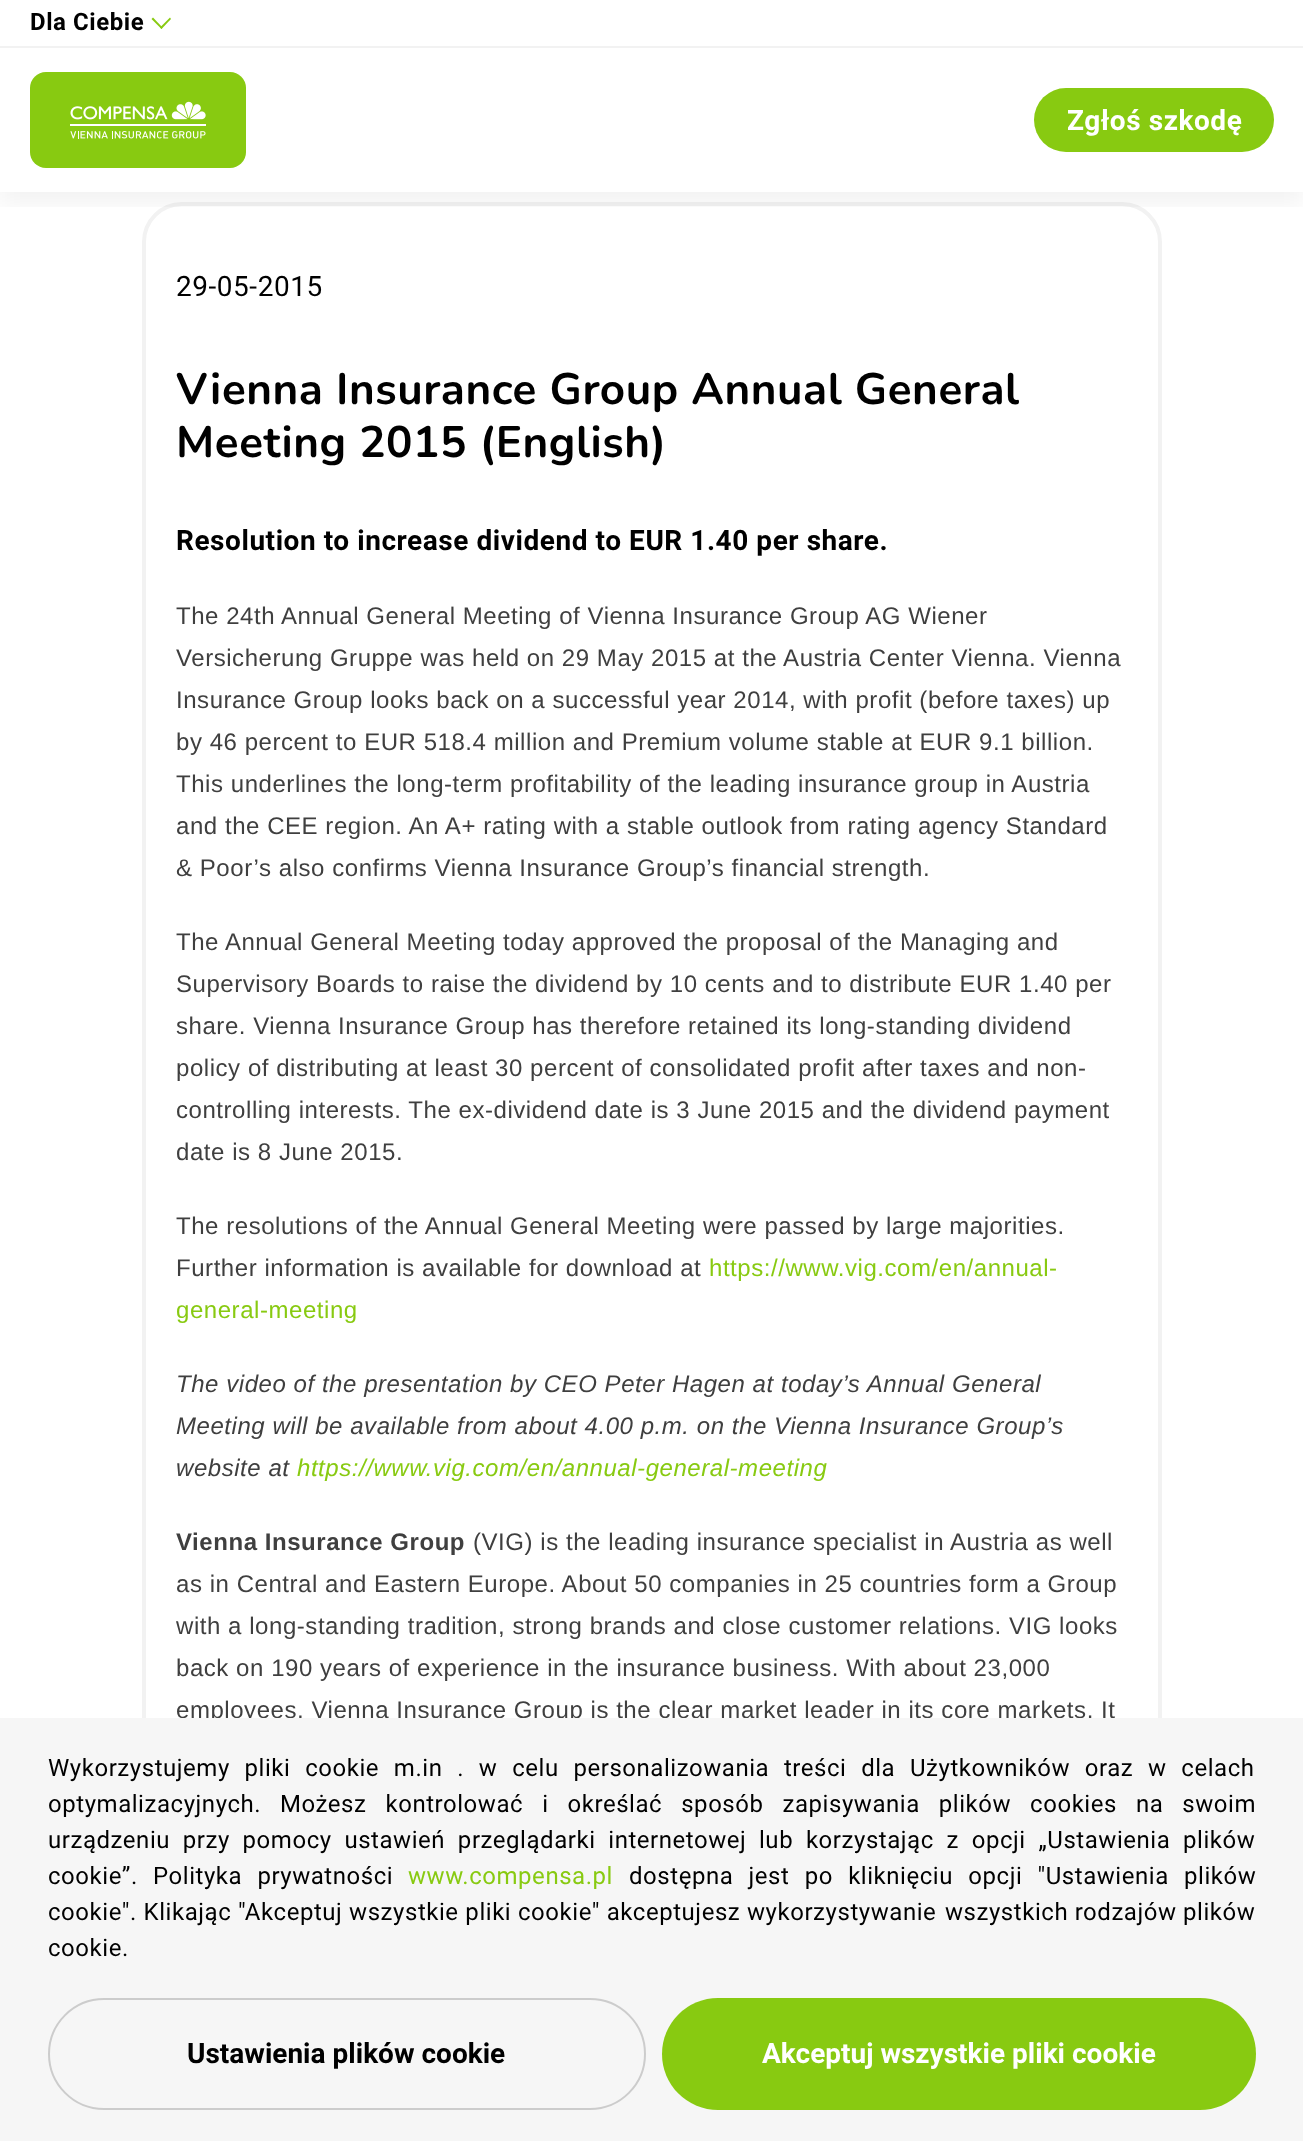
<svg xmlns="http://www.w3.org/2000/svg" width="1303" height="2141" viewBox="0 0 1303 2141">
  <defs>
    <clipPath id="clip1"><rect x="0" y="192" width="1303" height="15"/></clipPath>
    <filter id="blur1" x="-50%" y="-200%" width="200%" height="500%"><feGaussianBlur stdDeviation="12"/></filter>
  </defs>
  <rect width="100%" height="100%" fill="#ffffff"/>
  <rect x="0" y="46" width="1303" height="2" fill="#f2f2f2"/>
  <rect x="144" y="204" width="1016" height="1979" rx="38" fill="none" stroke="#f2f2f2" stroke-width="4"/>
  <g clip-path="url(#clip1)">
    <rect x="0" y="60" width="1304" height="144" fill="#000000" fill-opacity="0.05" filter="url(#blur1)"/>
  </g>
  <text x="30" y="30" font-family="Roboto" font-size="24" font-weight="bold" letter-spacing="0.55" fill="#000000">Dla Ciebie</text>
  <path d="M170 17.5L171 19L161.5 29L160 27.5Z" fill="#88ca11"/>
  <path d="M153 17.5L162.5 27.5L161.5 29L151.5 19Z" fill="#88ca11"/>
  <rect x="30" y="72" width="216" height="96" rx="16" fill="#88ca11"/>
  <image x="70" y="101" width="136" height="38" href="img1.png"/>
  <rect x="1034" y="88" width="240" height="64" rx="32" fill="#88ca11"/>
  <text x="1067" y="130" font-family="Roboto" font-size="28" font-weight="bold" letter-spacing="0.55" fill="#ffffff">Zgłoś szkodę</text>
  <text x="176" y="296" font-family="Roboto" font-size="28" letter-spacing="0.55" fill="#000000">29-05-2015</text>
  <text x="176" y="404" font-family="Nunito" font-size="44" font-weight="bold" letter-spacing="0.55" fill="#000000">Vienna Insurance Group Annual General</text>
  <text x="176" y="457" font-family="Nunito" font-size="44" font-weight="bold" letter-spacing="0.55" fill="#000000">Meeting 2015 (English)</text>
  <text x="176" y="550" font-family="Roboto" font-size="28" font-weight="bold" letter-spacing="0.55" fill="#000000">Resolution to increase dividend to EUR 1.40 per share.</text>
  <text x="176" y="624" font-family="Liberation Sans" font-size="24" letter-spacing="0.55" fill="#3f3f3f">The 24th Annual General Meeting of Vienna Insurance Group AG Wiener</text>
  <text x="176" y="666" font-family="Liberation Sans" font-size="24" letter-spacing="0.55" fill="#3f3f3f">Versicherung Gruppe was held on 29 May 2015 at the Austria Center Vienna. Vienna</text>
  <text x="176" y="708" font-family="Liberation Sans" font-size="24" letter-spacing="0.55" fill="#3f3f3f">Insurance Group looks back on a successful year 2014, with profit (before taxes) up</text>
  <text x="176" y="750" font-family="Liberation Sans" font-size="24" letter-spacing="0.55" fill="#3f3f3f">by 46 percent to EUR 518.4 million and Premium volume stable at EUR 9.1 billion.</text>
  <text x="176" y="792" font-family="Liberation Sans" font-size="24" letter-spacing="0.55" fill="#3f3f3f">This underlines the long-term profitability of the leading insurance group in Austria</text>
  <text x="176" y="834" font-family="Liberation Sans" font-size="24" letter-spacing="0.55" fill="#3f3f3f">and the CEE region. An A+ rating with a stable outlook from rating agency Standard</text>
  <text x="176" y="876" font-family="Liberation Sans" font-size="24" letter-spacing="0.55" fill="#3f3f3f">&amp; Poor’s also confirms Vienna Insurance Group’s financial strength.</text>
  <text x="176" y="950" font-family="Liberation Sans" font-size="24" letter-spacing="0.55" fill="#3f3f3f">The Annual General Meeting today approved the proposal of the Managing and</text>
  <text x="176" y="992" font-family="Liberation Sans" font-size="24" letter-spacing="0.55" fill="#3f3f3f">Supervisory Boards to raise the dividend by 10 cents and to distribute EUR 1.40 per</text>
  <text x="176" y="1034" font-family="Liberation Sans" font-size="24" letter-spacing="0.55" fill="#3f3f3f">share. Vienna Insurance Group has therefore retained its long-standing dividend</text>
  <text x="176" y="1076" font-family="Liberation Sans" font-size="24" letter-spacing="0.55" fill="#3f3f3f">policy of distributing at least 30 percent of consolidated profit after taxes and non-</text>
  <text x="176" y="1118" font-family="Liberation Sans" font-size="24" letter-spacing="0.55" fill="#3f3f3f">controlling interests. The ex-dividend date is 3 June 2015 and the dividend payment</text>
  <text x="176" y="1160" font-family="Liberation Sans" font-size="24" letter-spacing="0.55" fill="#3f3f3f">date is 8 June 2015.</text>
  <text x="176" y="1234" font-family="Liberation Sans" font-size="24" letter-spacing="0.55" fill="#3f3f3f">The resolutions of the Annual General Meeting were passed by large majorities.</text>
  <text x="176" y="1276" font-family="Liberation Sans" font-size="24" letter-spacing="0.55" fill="#3f3f3f">Further information is available for download at</text>
  <text x="709" y="1276" font-family="Liberation Sans" font-size="24" letter-spacing="0.55" fill="#88ca11">https://www.vig.com/en/annual-</text>
  <text x="176" y="1318" font-family="Liberation Sans" font-size="24" letter-spacing="0.55" fill="#88ca11">general-meeting</text>
  <text x="176" y="1392" font-family="Liberation Sans" font-size="24" font-style="italic" letter-spacing="0.55" fill="#3f3f3f">The video of the presentation by CEO Peter Hagen at today’s Annual General</text>
  <text x="176" y="1434" font-family="Liberation Sans" font-size="24" font-style="italic" letter-spacing="0.55" fill="#3f3f3f">Meeting will be available from about 4.00 p.m. on the Vienna Insurance Group’s</text>
  <text x="176" y="1476" font-family="Liberation Sans" font-size="24" font-style="italic" letter-spacing="0.55" fill="#3f3f3f">website at</text>
  <text x="297" y="1476" font-family="Liberation Sans" font-size="24" font-style="italic" letter-spacing="0.55" fill="#88ca11">https://www.vig.com/en/annual-general-meeting</text>
  <text x="176" y="1550" font-family="Liberation Sans" font-size="24" font-weight="bold" letter-spacing="0.55" fill="#3f3f3f">Vienna Insurance Group</text>
  <text x="473" y="1550" font-family="Liberation Sans" font-size="24" letter-spacing="0.55" fill="#3f3f3f">(VIG) is the leading insurance specialist in Austria as well</text>
  <text x="176" y="1592" font-family="Liberation Sans" font-size="24" letter-spacing="0.55" fill="#3f3f3f">as in Central and Eastern Europe. About 50 companies in 25 countries form a Group</text>
  <text x="176" y="1634" font-family="Liberation Sans" font-size="24" letter-spacing="0.55" fill="#3f3f3f">with a long-standing tradition, strong brands and close customer relations. VIG looks</text>
  <text x="176" y="1676" font-family="Liberation Sans" font-size="24" letter-spacing="0.55" fill="#3f3f3f">back on 190 years of experience in the insurance business. With about 23,000</text>
  <text x="176" y="1718" font-family="Liberation Sans" font-size="24" letter-spacing="0.55" fill="#3f3f3f">employees, Vienna Insurance Group is the clear market leader in its core markets. It</text>
  <rect x="0" y="1718" width="1303" height="423" fill="#f6f6f6"/>
  <text x="48" y="1776" word-spacing="8.25" font-family="Roboto" font-size="24" letter-spacing="0.55" fill="#000000">Wykorzystujemy pliki cookie m.in . w celu personalizowania treści dla Użytkowników oraz w celach</text>
  <text x="48" y="1812" font-family="Roboto" font-size="24" letter-spacing="0.55" fill="#000000">optymalizacyjnych.</text>
  <text x="280" y="1812" word-spacing="12.5" font-family="Roboto" font-size="24" letter-spacing="0.55" fill="#000000">Możesz kontrolować i określać sposób zapisywania plików cookies na swoim</text>
  <text x="48" y="1848" word-spacing="6.25" font-family="Roboto" font-size="24" letter-spacing="0.55" fill="#000000">urządzeniu przy pomocy ustawień przeglądarki internetowej</text>
  <text x="759" y="1848" word-spacing="6.25" font-family="Roboto" font-size="24" letter-spacing="0.55" fill="#000000">lub korzystając z opcji „Ustawienia plików</text>
  <text x="48" y="1884" word-spacing="8.75" font-family="Roboto" font-size="24" letter-spacing="0.55" fill="#000000">cookie”. Polityka prywatności</text>
  <text x="408" y="1884" font-family="Roboto" font-size="24" letter-spacing="0.55" fill="#88ca11">www.compensa.pl</text>
  <text x="629" y="1884" word-spacing="8.75" font-family="Roboto" font-size="24" letter-spacing="0.55" fill="#000000">dostępna jest po kliknięciu opcji "Ustawienia plików</text>
  <text x="48" y="1920" word-spacing="0.25" font-family="Roboto" font-size="24" letter-spacing="0.55" fill="#000000">cookie". Klikając "Akceptuj wszystkie pliki cookie" akceptujesz wykorzystywanie</text>
  <text x="945" y="1920" font-family="Roboto" font-size="24" letter-spacing="0.55" fill="#000000">wszystkich rodzajów plików</text>
  <text x="48" y="1956" font-family="Roboto" font-size="24" letter-spacing="0.55" fill="#000000">cookie.</text>
  <rect x="49" y="1999" width="596" height="110" rx="55" fill="none" stroke="#cccccc" stroke-width="2"/>
  <text x="187" y="2063" font-family="Roboto" font-size="28" font-weight="bold" fill="#000000">Ustawienia plików cookie</text>
  <rect x="662" y="1998" width="594" height="112" rx="56" fill="#88ca11"/>
  <text x="762" y="2063" font-family="Roboto" font-size="28" font-weight="bold" fill="#ffffff">Akceptuj wszystkie pliki cookie</text>
</svg>
